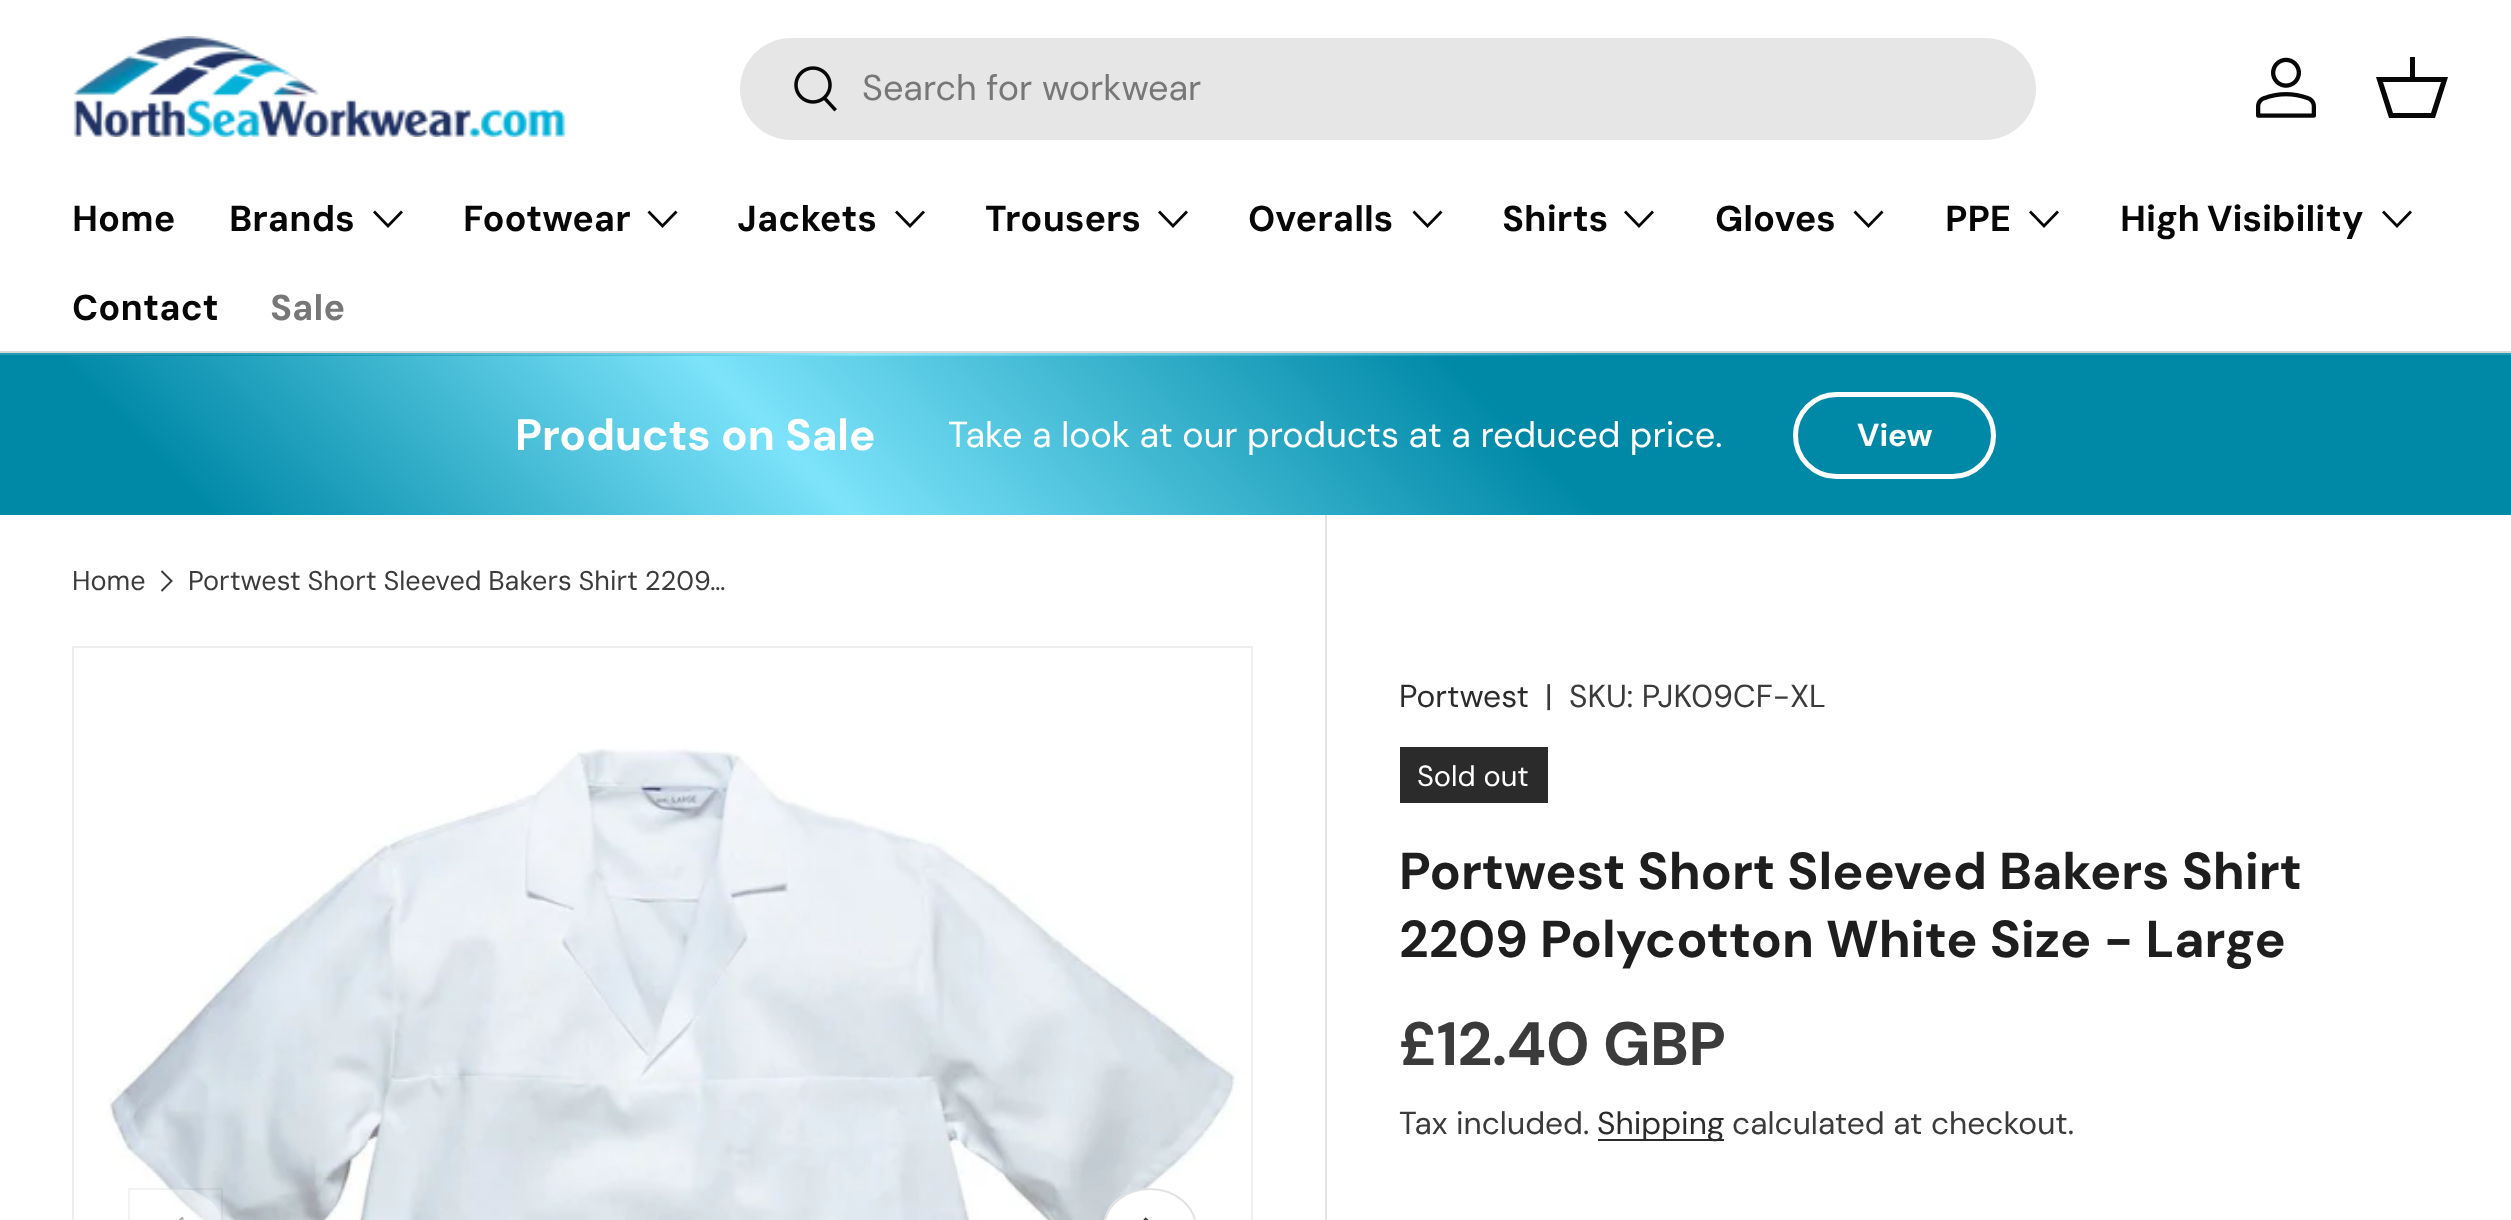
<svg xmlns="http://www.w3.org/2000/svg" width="2511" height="1220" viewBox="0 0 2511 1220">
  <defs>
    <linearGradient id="g1" gradientUnits="userSpaceOnUse" x1="566" y1="942" x2="1945" y2="-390"><stop offset="0.08" stop-color="#0089a7"/><stop offset="0.32" stop-color="#7ce3fa"/><stop offset="0.6" stop-color="#0089a7"/></linearGradient>
    <linearGradient id="g2" gradientUnits="userSpaceOnUse" x1="566" y1="942" x2="1945" y2="-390"><stop offset="0.08" stop-color="#269bb4"/><stop offset="0.32" stop-color="#90e7fb"/><stop offset="0.6" stop-color="#269bb4"/></linearGradient>
    <linearGradient id="g3" gradientUnits="userSpaceOnUse" x1="566" y1="1101" x2="1945" y2="-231"><stop offset="0.08" stop-color="#0089a7"/><stop offset="0.32" stop-color="#7ce3fa"/><stop offset="0.6" stop-color="#0089a7"/></linearGradient>
  </defs>
  <rect width="100%" height="100%" fill="#ffffff"/>
  <rect x="0" y="351" width="2511" height="2" fill="#dadada"/>
  <image x="73" y="36" width="493" height="101" href="img1.png"/>
  <rect x="740" y="38" width="1296" height="102" rx="51" fill="#e6e6e6"/>
  <image x="794" y="66" width="43" height="46" href="img2.png"/>
  <text x="862" y="100" font-family="'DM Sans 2'" font-size="36" fill="#777777">Search for workwear</text>
  <image x="2256" y="57" width="60" height="61" href="img3.png"/>
  <path d="M2410 77V57H2415V77H2448L2435 118H2389L2376 77ZM2383 82L2393 113H2431L2441 82Z" fill="#070707"/>
  <text x="72" y="231" font-family="'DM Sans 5'" font-size="36" font-weight="bold" fill="#070707">Home</text>
  <text x="229" y="231" font-family="'DM Sans 5'" font-size="36" font-weight="bold" fill="#070707">Brands</text>
  <path d="M402 211.5L388 226L374 211.5" fill="none" stroke="#070707" stroke-width="2.8"/>
  <text x="463" y="231" font-family="'DM Sans 5'" font-size="36" font-weight="bold" fill="#070707">Footwear</text>
  <path d="M676.5 211.5L662.5 226L648.5 211.5" fill="none" stroke="#070707" stroke-width="2.8"/>
  <text x="737" y="231" font-family="'DM Sans 5'" font-size="36" font-weight="bold" fill="#070707">Jackets</text>
  <path d="M924 211.5L910 226L896 211.5" fill="none" stroke="#070707" stroke-width="2.8"/>
  <text x="985" y="231" font-family="'DM Sans 5'" font-size="36" font-weight="bold" fill="#070707">Trousers</text>
  <path d="M1187 211.5L1173 226L1159 211.5" fill="none" stroke="#070707" stroke-width="2.8"/>
  <text x="1248" y="231" font-family="'DM Sans 5'" font-size="36" font-weight="bold" fill="#070707">Overalls</text>
  <path d="M1441.5 211.5L1427.5 226L1413.5 211.5" fill="none" stroke="#070707" stroke-width="2.8"/>
  <text x="1502" y="231" font-family="'DM Sans 5'" font-size="36" font-weight="bold" fill="#070707">Shirts</text>
  <path d="M1653 211.5L1639 226L1625 211.5" fill="none" stroke="#070707" stroke-width="2.8"/>
  <text x="1715" y="231" font-family="'DM Sans 5'" font-size="36" font-weight="bold" fill="#070707">Gloves</text>
  <path d="M1882.5 211.5L1868.5 226L1854.5 211.5" fill="none" stroke="#070707" stroke-width="2.8"/>
  <text x="1945" y="231" font-family="'DM Sans 5'" font-size="36" font-weight="bold" fill="#070707">PPE</text>
  <path d="M2058 211.5L2044 226L2030 211.5" fill="none" stroke="#070707" stroke-width="2.8"/>
  <text x="2120" y="231" word-spacing="-2" font-family="'DM Sans 5'" font-size="36" font-weight="bold" fill="#070707">High Visibility</text>
  <path d="M2411 211.5L2397 226L2383 211.5" fill="none" stroke="#070707" stroke-width="2.8"/>
  <text x="72" y="320" font-family="'DM Sans 5'" font-size="36" font-weight="bold" fill="#070707">Contact</text>
  <text x="270" y="320" font-family="'DM Sans 5'" font-size="36" font-weight="bold" fill="#777777">Sale</text>
  <rect x="0" y="355" width="2511" height="1" fill="url(#g1)"/>
  <rect x="0" y="353" width="2511" height="2" fill="url(#g2)"/>
  <rect x="0" y="356" width="2511" height="159" fill="url(#g3)"/>
  <text x="515" y="450" font-family="DM Sans" font-size="44" font-weight="bold" fill="#ffffff">Products on Sale</text>
  <text x="948" y="447" font-family="'DM Sans 2'" font-size="36" fill="#ffffff">Take a look at our products at a reduced price.</text>
  <rect x="1795.5" y="394.5" width="198" height="82" rx="41" fill="none" stroke="#ffffff" stroke-width="5"/>
  <text x="1857" y="446" font-family="'DM Sans 2'" font-size="31.75" font-weight="bold" fill="#ffffff">View</text>
  <text x="72" y="590" font-family="DM Sans" font-size="27" fill="#3b3b3b">Home</text>
  <path d="M161.5 571L171.5 581L161.5 591" fill="none" stroke="#3b3b3b" stroke-width="2"/>
  <text x="188" y="590" word-spacing="-0.5" font-family="DM Sans" font-size="27" fill="#3b3b3b">Portwest Short Sleeved Bakers Shirt 2209…</text>
  <rect x="73" y="647" width="1179" height="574" fill="none" stroke="#eeeeee" stroke-width="2"/>
  <image x="74" y="648" width="1177" height="572" href="img4.png"/>
  <rect x="128" y="1188" width="95" height="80" rx="47.5" fill="#ffffff" fill-opacity="0.4"/>
  <rect x="129" y="1189" width="93" height="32" fill="none" stroke="#3b3b3b" stroke-opacity="0.06" stroke-width="2"/>
  <path d="M164 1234.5L182 1216.5L184 1218.5L168.5 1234.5L184 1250L182 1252.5Z" fill="#b1b1b1"/>
  <rect x="1103" y="1188" width="94" height="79" rx="47" fill="#ffffff"/>
  <rect x="1104" y="1189" width="92" height="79" rx="46" fill="none" stroke="#3b3b3b" stroke-opacity="0.15" stroke-width="2"/>
  <path d="M1144.5 1218.5L1161.5 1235L1144.5 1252" fill="none" stroke="#3b3b3b" stroke-width="3.4"/>
  <rect x="1325" y="515" width="2" height="705" fill="#e2e2e2"/>
  <text x="1399" y="707" font-family="'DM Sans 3'" font-size="31.75" fill="#2a2b2a">Portwest</text>
  <text x="1545" y="707" font-family="'DM Sans 3'" font-size="31.75" fill="#3b3b3b">|</text>
  <text x="1569" y="707" font-family="'DM Sans 3'" font-size="31.75" fill="#3b3b3b">SKU: PJK09CF-XL</text>
  <rect x="1400" y="747" width="148" height="56" fill="#2a2b2a"/>
  <text x="1417" y="786" font-family="'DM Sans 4'" font-size="29" fill="#ffffff">Sold out</text>
  <text x="1399" y="889" font-family="'DM Sans 3'" font-size="51.9" font-weight="bold" fill="#1e1e1e">Portwest Short Sleeved Bakers Shirt</text>
  <text x="1399" y="957" font-family="'DM Sans 3'" font-size="51.9" font-weight="bold" fill="#1e1e1e">2209 Polycotton White Size - Large</text>
  <text x="1399" y="1065" font-family="'DM Sans 4'" font-size="61" font-weight="bold" fill="#3b3b3b">£12.40 GBP</text>
  <text x="1399" y="1134" font-family="'DM Sans 3'" font-size="31.75" fill="#3b3b3b">Tax included.</text>
  <rect x="1598" y="1139" width="126" height="2" fill="#2a2b2a"/>
  <text x="1597" y="1134" font-family="'DM Sans 3'" font-size="31.75" fill="#2a2b2a">Shipping</text>
  <text x="1732" y="1134" font-family="'DM Sans 3'" font-size="31.75" fill="#3b3b3b">calculated at checkout.</text>
</svg>
